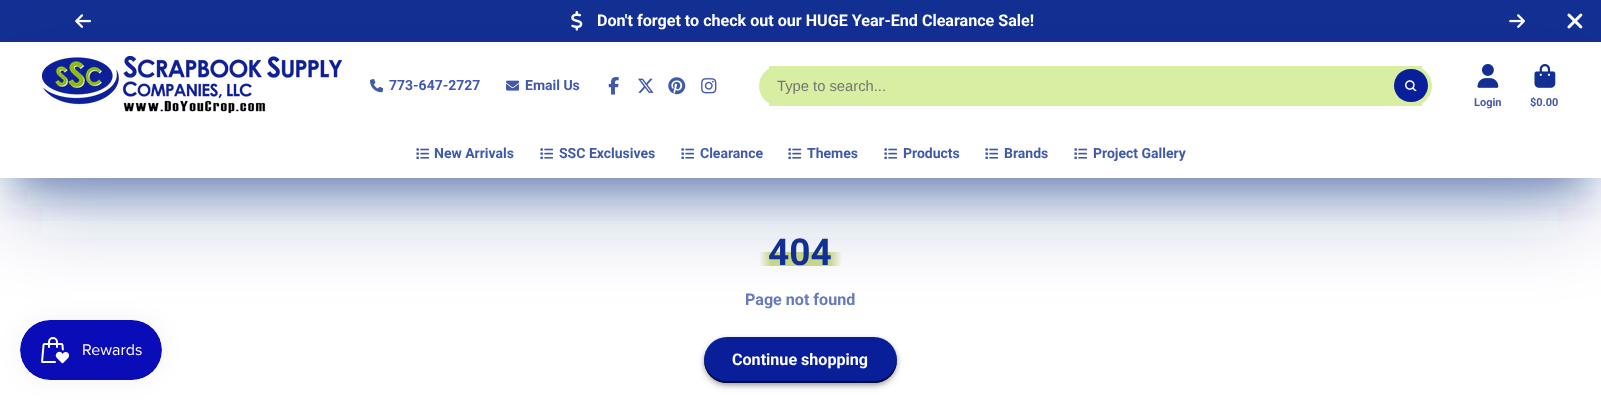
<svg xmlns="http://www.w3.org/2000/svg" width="1601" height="400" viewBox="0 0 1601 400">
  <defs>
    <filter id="blur1" x="-50%" y="-200%" width="200%" height="500%"><feGaussianBlur stdDeviation="12.5"/></filter>
    <linearGradient id="g1" gradientUnits="userSpaceOnUse" x1="759" y1="259" x2="842" y2="259"><stop offset="0" stop-color="#ffffff"/><stop offset="0.15" stop-color="#cbdd8b"/><stop offset="0.85" stop-color="#cbdd8b"/><stop offset="1" stop-color="#ffffff"/></linearGradient>
    <filter id="blur2" x="-50%" y="-200%" width="200%" height="500%"><feGaussianBlur stdDeviation="5"/></filter>
    <filter id="blur3" x="-50%" y="-200%" width="200%" height="500%"><feGaussianBlur stdDeviation="2.5"/></filter>
    <clipPath id="clip1"><path d="M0 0H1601V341H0ZM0 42H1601V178H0Z" clip-rule="evenodd"/></clipPath>
    <filter id="blur4" x="-50%" y="-200%" width="200%" height="500%"><feGaussianBlur stdDeviation="44"/></filter>
    <clipPath id="clip2"><rect x="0" y="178" width="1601" height="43"/></clipPath>
    <filter id="blur5" x="-50%" y="-200%" width="200%" height="500%"><feGaussianBlur stdDeviation="19"/></filter>
  </defs>
  <rect width="100%" height="100%" fill="#ffffff"/>
  <rect x="20" y="320" width="142" height="60" rx="30" fill="#000000" fill-opacity="0.05" filter="url(#blur1)"/>
  <rect x="0" y="0" width="1601" height="42" fill="#122f93"/>
  <image x="75" y="14" width="16" height="14" href="img2.png"/>
  <image x="571" y="11" width="12" height="20" href="img3.png"/>
  <image x="1509" y="14" width="16" height="14" href="img4.png"/>
  <image x="1567" y="13" width="16" height="16" href="img5.png"/>
  <rect x="759" y="252" width="83" height="14" fill="url(#g1)"/>
  <rect x="706" y="344" width="189" height="41" rx="20.5" fill="#010208" fill-opacity="0.15" filter="url(#blur2)"/>
  <rect x="704" y="339" width="193" height="46" rx="23" fill="#010208" fill-opacity="0.3" filter="url(#blur3)"/>
  <rect x="704" y="337" width="193" height="46" rx="23" fill="#091f99"/>
  <g clip-path="url(#clip1)">
    <rect x="14" y="100" width="1573" height="108" fill="#0f287c" fill-opacity="0.3" filter="url(#blur4)"/>
  </g>
  <image x="20" y="320" width="142" height="60" href="img1.png"/>
  <text x="597" y="26" font-family="Roboto" font-size="16.1" font-weight="bold" fill="#ffffff">Don't forget to check out our HUGE Year-End Clearance Sale!</text>
  <g clip-path="url(#clip2)">
    <rect x="14" y="82" width="1573" height="108" fill="#0f287c" fill-opacity="0.4" filter="url(#blur5)"/>
  </g>
  <image x="42" y="56" width="300" height="58" href="img6.png"/>
  <image x="370" y="79" width="13" height="14" href="img7.png"/>
  <text x="389" y="90" font-family="Roboto" font-size="14" font-weight="bold" fill="#4159a9">773-647-2727</text>
  <image x="506" y="80" width="13" height="11" href="img8.png"/>
  <text x="525" y="90" font-family="Roboto" font-size="14" font-weight="bold" fill="#4159a9">Email Us</text>
  <image x="608" y="77" width="11" height="18" href="img9.png"/>
  <image x="638" y="78" width="16" height="15" href="img10.png"/>
  <image x="668" y="77" width="18" height="18" href="img11.png"/>
  <image x="701" y="78" width="16" height="16" href="img12.png"/>
  <rect x="769" y="66" width="653" height="40" fill="#d8eea2"/>
  <rect x="759" y="66" width="673" height="40" rx="20" fill="#d8eea2"/>
  <text x="777" y="91" font-family="Liberation Sans" font-size="14.75" fill="#757575">Type to search...</text>
  <rect x="1394" y="69" width="34" height="33" rx="16.5" fill="#091f99"/>
  <image x="1405" y="80" width="12" height="11" href="img13.png"/>
  <image x="1477" y="64" width="22" height="24" href="img14.png"/>
  <text x="1474" y="106" font-family="Roboto" font-size="11" font-weight="bold" fill="#4159a9">Login</text>
  <image x="1534" y="64" width="22" height="24" href="img15.png"/>
  <text x="1530" y="106" font-family="Roboto" font-size="11" font-weight="bold" fill="#4159a9">$0.00</text>
  <image x="416" y="148" width="13" height="12" href="img16.png"/>
  <text x="434" y="158" font-family="Roboto" font-size="14" font-weight="bold" fill="#4159a9">New Arrivals</text>
  <image x="540" y="148" width="13" height="12" href="img16.png"/>
  <text x="559" y="158" font-family="Roboto" font-size="14" font-weight="bold" fill="#4159a9">SSC Exclusives</text>
  <image x="681" y="148" width="13" height="12" href="img16.png"/>
  <text x="700" y="158" font-family="Roboto" font-size="14" font-weight="bold" fill="#4159a9">Clearance</text>
  <image x="788" y="148" width="14" height="12" href="img17.png"/>
  <text x="807" y="158" font-family="Roboto" font-size="14" font-weight="bold" fill="#4159a9">Themes</text>
  <image x="884" y="148" width="13" height="12" href="img16.png"/>
  <text x="903" y="158" font-family="Roboto" font-size="14" font-weight="bold" fill="#4159a9">Products</text>
  <image x="985" y="148" width="13" height="12" href="img16.png"/>
  <text x="1004" y="158" font-family="Roboto" font-size="14" font-weight="bold" fill="#4159a9">Brands</text>
  <image x="1074" y="148" width="13" height="12" href="img16.png"/>
  <text x="1093" y="158" font-family="Roboto" font-size="14" font-weight="bold" fill="#4159a9">Project Gallery</text>
  <text x="768" y="265" font-family="Roboto" font-size="37" font-weight="bold" fill="#122f93">404</text>
  <text x="745" y="305" font-family="Roboto" font-size="16.1" font-weight="bold" fill="#677aba">Page not found</text>
  <path d="M704 359V360C704 373 714 383 727 383H874C887 383 897 373 897 360V359C896 371 887 381 874 381H727C714 381 705 371 704 359Z" fill="#040d42"/>
  <text x="732" y="365" font-family="Roboto" font-size="16.1" font-weight="bold" fill="#ffffff">Continue shopping</text>
</svg>
